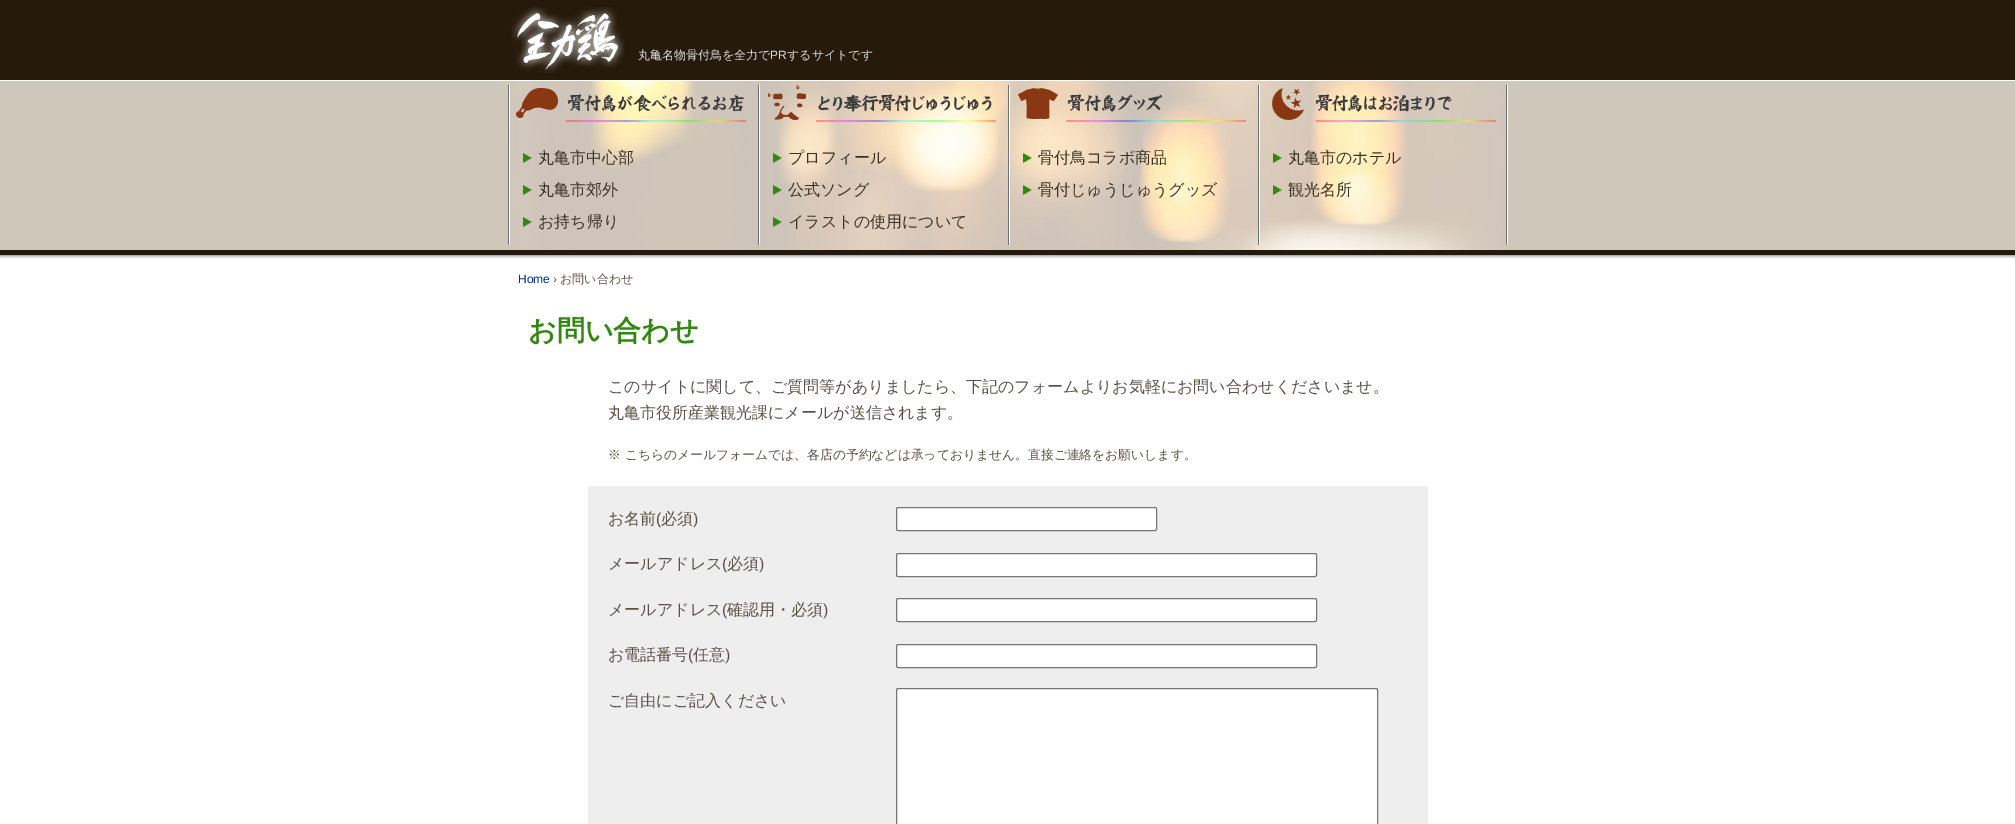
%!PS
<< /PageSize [2015 824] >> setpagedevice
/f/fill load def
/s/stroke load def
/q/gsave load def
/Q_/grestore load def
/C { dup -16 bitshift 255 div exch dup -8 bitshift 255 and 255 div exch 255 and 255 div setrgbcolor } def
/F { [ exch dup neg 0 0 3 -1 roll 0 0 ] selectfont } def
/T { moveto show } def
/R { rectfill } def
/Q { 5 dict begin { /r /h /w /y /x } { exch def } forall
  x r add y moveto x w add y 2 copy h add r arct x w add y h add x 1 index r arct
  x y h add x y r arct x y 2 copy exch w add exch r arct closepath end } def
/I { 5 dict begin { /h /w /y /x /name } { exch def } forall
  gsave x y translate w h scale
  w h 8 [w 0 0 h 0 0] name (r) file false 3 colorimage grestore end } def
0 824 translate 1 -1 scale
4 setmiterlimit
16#FFFFFF C
0 0 2015 824 R
16#261A0C C
0 0 2015 80 R
(1.rgb) 511 7 114 66 I
/WenQuanYiZenHei-Medium 12 F
16#DDDDDD C
(丸亀名物骨付鳥を全力で) 638 59 T
/LiberationSans-Regular 12 F
(PR) 770 59 T
/WenQuanYiZenHei-Medium 12 F
(するサイトです) 787 59 T
(2.rgb) 0 81 2015 178 I
(3.rgb) 508 80 250 173 I
(4.rgb) 516 88 230 34 I
(5.rgb) 523 153 9 10 I
/WenQuanYiZenHei-Medium 16 F
16#3A3124 C
(丸亀市中心部) 538 163 T
(6.rgb) 523 185 9 10 I
(丸亀市郊外) 538 195 T
(7.rgb) 523 217 9 10 I
(お持ち帰り) 538 227 T
(8.rgb) 758 80 250 175 I
(9.rgb) 768 85 228 37 I
(10.rgb) 773 153 9 10 I
(プロフィール) 788 163 T
(11.rgb) 773 185 9 10 I
(公式ソング) 788 195 T
(12.rgb) 773 217 9 10 I
(イラストの使用について) 788 227 T
(13.rgb) 1008 80 250 175 I
(14.rgb) 1018 88 228 34 I
(15.rgb) 1023 153 9 10 I
(骨付鳥コラボ商品) 1038 163 T
(16.rgb) 1023 185 9 10 I
(骨付じゅうじゅうグッズ) 1038 195 T
(17.rgb) 1258 81 250 173 I
(18.rgb) 1272 88 224 34 I
(19.rgb) 1273 153 9 10 I
(丸亀市のホテル) 1288 163 T
(20.rgb) 1273 185 9 10 I
(観光名所) 1288 195 T
/LiberationSans-Regular 12 F
16#003399 C
(Home) 518 283 T
16#5A5144 C
(›) 553 283 T
/WenQuanYiZenHei-Medium 12 F
(お問い合わせ) 560 283 T
/WenQuanYiZenHei-Bold 28 F
16#30880D C
(お問い合わせ) 528 340 T
/WenQuanYiZenHei-Medium 16 F
16#5A5144 C
(このサイトに関して、ご質問等がありましたら、下記のフォームよりお気軽にお問い合わせくださいませ。) 608 392 T
(丸亀市役所産業観光課にメールが送信されます。) 608 418 T
/WenQuanYiZenHei-Medium 12.8 F
(※ こちらのメールフォームでは、各店の予約などは承っておりません。直接ご連絡をお願いします。) 608 459 T
16#EEEEEE C
588 486 840 338 R
/WenQuanYiZenHei-Medium 16 F
16#5A5144 C
(お名前) 608 524 T
/LiberationSans-Regular 16 F
(\() 656 524 T
/WenQuanYiZenHei-Medium 16 F
(必須) 661 524 T
/LiberationSans-Regular 16 F
(\)) 693 524 T
16#FFFFFF C
896.5 507.5 260 23 1.5 Q q f Q_
16#767676 C
s
/WenQuanYiZenHei-Medium 16 F
16#5A5144 C
(メールアドレス) 608 569 T
/LiberationSans-Regular 16 F
(\() 722 569 T
/WenQuanYiZenHei-Medium 16 F
(必須) 727 569 T
/LiberationSans-Regular 16 F
(\)) 759 569 T
16#FFFFFF C
896.5 553.5 420 23 1.5 Q q f Q_
16#767676 C
s
/WenQuanYiZenHei-Medium 16 F
16#5A5144 C
(メールアドレス) 608 615 T
/LiberationSans-Regular 16 F
(\() 722 615 T
/WenQuanYiZenHei-Medium 16 F
(確認用・必須) 727 615 T
/LiberationSans-Regular 16 F
(\)) 823 615 T
16#FFFFFF C
896.5 598.5 420 23 1.5 Q q f Q_
16#767676 C
s
/WenQuanYiZenHei-Medium 16 F
16#5A5144 C
(お電話番号) 608 660 T
/LiberationSans-Regular 16 F
(\() 688 660 T
/WenQuanYiZenHei-Medium 16 F
(任意) 693 660 T
/LiberationSans-Regular 16 F
(\)) 725 660 T
16#FFFFFF C
896.5 644.5 420 23 1.5 Q q f Q_
16#767676 C
s
/WenQuanYiZenHei-Medium 16 F
16#5A5144 C
(ご自由にご記入ください) 608 706 T
16#FFFFFF C
896.5 688.5 481 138 1.5 Q q f Q_
16#767676 C
s
showpage
